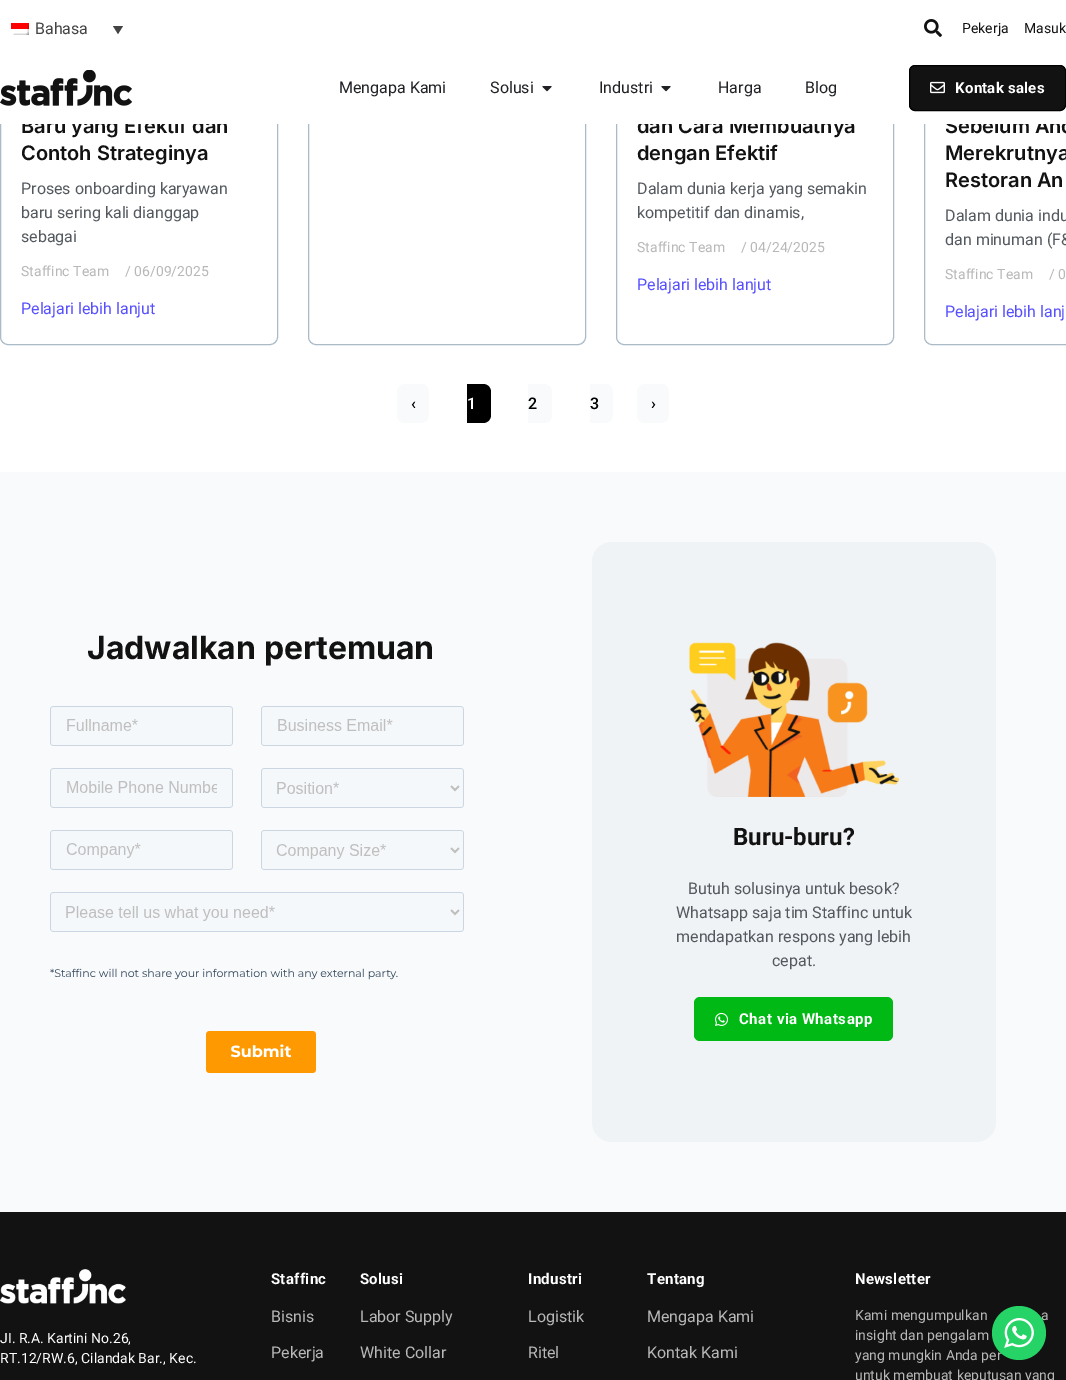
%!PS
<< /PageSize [1066 1380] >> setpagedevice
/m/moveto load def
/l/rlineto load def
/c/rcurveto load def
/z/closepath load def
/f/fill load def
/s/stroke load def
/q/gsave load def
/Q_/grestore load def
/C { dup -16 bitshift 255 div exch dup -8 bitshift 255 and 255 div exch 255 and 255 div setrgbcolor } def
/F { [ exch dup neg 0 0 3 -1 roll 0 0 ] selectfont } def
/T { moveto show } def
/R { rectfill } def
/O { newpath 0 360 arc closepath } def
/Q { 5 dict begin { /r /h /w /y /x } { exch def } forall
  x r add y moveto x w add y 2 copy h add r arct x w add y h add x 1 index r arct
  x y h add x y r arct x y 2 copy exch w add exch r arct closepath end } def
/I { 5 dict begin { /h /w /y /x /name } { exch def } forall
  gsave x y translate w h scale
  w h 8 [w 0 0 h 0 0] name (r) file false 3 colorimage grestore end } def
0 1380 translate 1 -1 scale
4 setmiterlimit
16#FFFFFF C
0 0 1066 1380 R
16#AABBC8 C
.5 -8.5 277 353 7.5 Q s
/Inter-SemiBold 20 F
16#121212 C
(Baru yang Efektif dan) 21 133 T
16#AABBC8 C
308.5 -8.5 277 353 7.5 Q s
616.5 -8.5 277 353 7.5 Q s
16#121212 C
(dan Cara Membuatnya) 637 133 T
16#AABBC8 C
924.5 -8.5 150 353 7.5 Q s
16#121212 C
(Sebelum And) 945 133 T
16#FFFFFF C
0 0 1066 124 R
(1.rgb) 11 23 18 12 I
/Roboto-Regular 16 F
16#444444 C
(Bahasa) 35 34 T
113 26 m 10 0 l -5 8 l z f
(2.rgb) 924 19 18 18 I
/Roboto-Regular 14 F
16#121212 C
(Pekerja) 962 33 T
(Masuk) 1024 33 T
(3.rgb) 0 70 132 36 I
/Roboto-Regular 16 F
16#1F2124 C
(Mengapa Kami) 339 93 T
(Solusi) 490 93 T
(4.rgb) 542 86 10 6 I
(Industri) 599 93 T
(4.rgb) 661 86 10 6 I
(Harga) 718 93 T
(Blog) 805 93 T
16#121212 C
909.5 65.5 156 45 5.5 Q q f Q_
16#000000 C
s
(5.rgb) 930 81 15 13 I
/Roboto-Bold 15 F
16#FFFFFF C
955 93 m .25 0 (Kontak sales) ashow
/Inter-SemiBold 20 F
16#121212 C
(Contoh Strateginya) 21 160 T
/Roboto-Regular 16 F
16#54595F C
(Proses onboarding karyawan) 21 194 T
(baru sering kali dianggap) 21 218 T
(sebagai) 21 242 T
/Roboto-Regular 14 F
16#B8B8B8 C
(Staffinc Team) 21 276 T
(/ 06/09/2025) 125 276 T
/Roboto-Regular 16 F
16#5750FF C
(Pelajari lebih lanjut) 21 314 T
/Inter-SemiBold 20 F
16#121212 C
(dengan Efektif) 637 160 T
/Roboto-Regular 16 F
16#54595F C
(Dalam dunia kerja yang semakin) 637 194 T
(kompetitif dan dinamis,) 637 218 T
/Roboto-Regular 14 F
16#B8B8B8 C
(Staffinc Team) 637 252 T
(/ 04/24/2025) 741 252 T
/Roboto-Regular 16 F
16#5750FF C
(Pelajari lebih lanjut) 637 290 T
/Inter-SemiBold 20 F
16#121212 C
(Merekrutnya) 945 160 T
(Restoran An) 945 187 T
/Roboto-Regular 16 F
16#54595F C
(Dalam dunia indu) 945 221 T
(dan minuman \(F&) 945 245 T
/Roboto-Regular 14 F
16#B8B8B8 C
(Staffinc Team) 945 279 T
(/ 0) 1049 279 T
/Roboto-Regular 16 F
16#5750FF C
(Pelajari lebih lanj) 945 317 T
16#F8FAFB C
397 384 32 39 8 Q f
/Roboto-Medium 16 F
16#000000 C
(‹) 411 409 T
467 384 m 16 0 l 4.5 0 8 3.5 8 8 c 0 23 l 0 4.5 -3.5 8 -8 8 c -16 0 l z f
16#FFFFFF C
(1) 467 409 T
16#F8FAFB C
528 384 m 16 0 l 4.5 0 8 3.5 8 8 c 0 23 l 0 4.5 -3.5 8 -8 8 c -16 0 l z f
16#000000 C
(2) 528 409 T
16#F8FAFB C
590 384 m 15 0 l 4.5 0 8 3.5 8 8 c 0 23 l 0 4.5 -3.5 8 -8 8 c -15 0 l z f
16#000000 C
(3) 590 409 T
16#F8FAFB C
637 384 32 39 8 Q f
16#000000 C
(›) 651 409 T
16#F8FAFB C
0 472 1066 740 R
/Inter-Bold 32 F
16#121212 C
(Jadwalkan pertemuan) 87 659 T
(6.rgb) 50 706 414 367 I
16#F0F3F5 C
592 542 404 600 20 Q f
(7.rgb) 689 642 210 155 I
/Roboto-Bold 24 F
16#121212 C
(Buru-buru?) 733 845 T
/Roboto-Regular 16 F
16#54595F C
(Butuh solusinya untuk besok?) 688 894 T
(Whatsapp saja tim Staffinc untuk) 676 918 T
(mendapatkan respons yang lebih) 676 942 T
(cepat.) 772 966 T
16#00B914 C
694 997 199 44 6 Q f
(8.rgb) 715 1012 14 14 I
/Roboto-Bold 15 F
16#FFFFFF C
739 1024 m .5 0 (Chat via Whatsapp) ashow
16#121212 C
0 1212 1066 168 R
(9.rgb) 0 1269 126 35 I
/Roboto-Regular 14 F
16#FFFFFF C
(JI. R.A. Kartini No.26,) 0 1343 T
(RT.12/RW.6, Cilandak Bar., Kec.) 0 1363 T
/Roboto-Bold 15 F
271 1284 m .25 0 (Staffinc) ashow
/Roboto-Regular 16 F
16#B8B8B8 C
(Bisnis) 271 1322 T
(Pekerja) 271 1358 T
/Roboto-Bold 15 F
16#FFFFFF C
360 1284 m .25 0 (Solusi) ashow
/Roboto-Regular 16 F
16#B8B8B8 C
(Labor Supply) 360 1322 T
(White Collar) 360 1358 T
/Roboto-Bold 15 F
16#FFFFFF C
528 1284 m .25 0 (Industri) ashow
/Roboto-Regular 16 F
16#B8B8B8 C
(Logistik) 528 1322 T
(Ritel) 528 1358 T
/Roboto-Bold 15 F
16#FFFFFF C
647 1284 m .25 0 (Tentang) ashow
/Roboto-Regular 16 F
16#B8B8B8 C
(Mengapa Kami) 647 1322 T
(Kontak Kami) 647 1358 T
/Roboto-Bold 15 F
16#FFFFFF C
855 1284 m .25 0 (Newsletter) ashow
/Roboto-Regular 14 F
16#B8B8B8 C
(Kami mengumpulkan) 855 1320 T
(a) 1041 1320 T
(insight dan pengalam) 855 1340 T
(yang mungkin Anda per) 855 1360 T
(untuk membuat keputusan yang) 855 1380 T
16#25D366 C
1019 1333 27 O f
(10.rgb) 1004 1318 30 30 I
showpage
